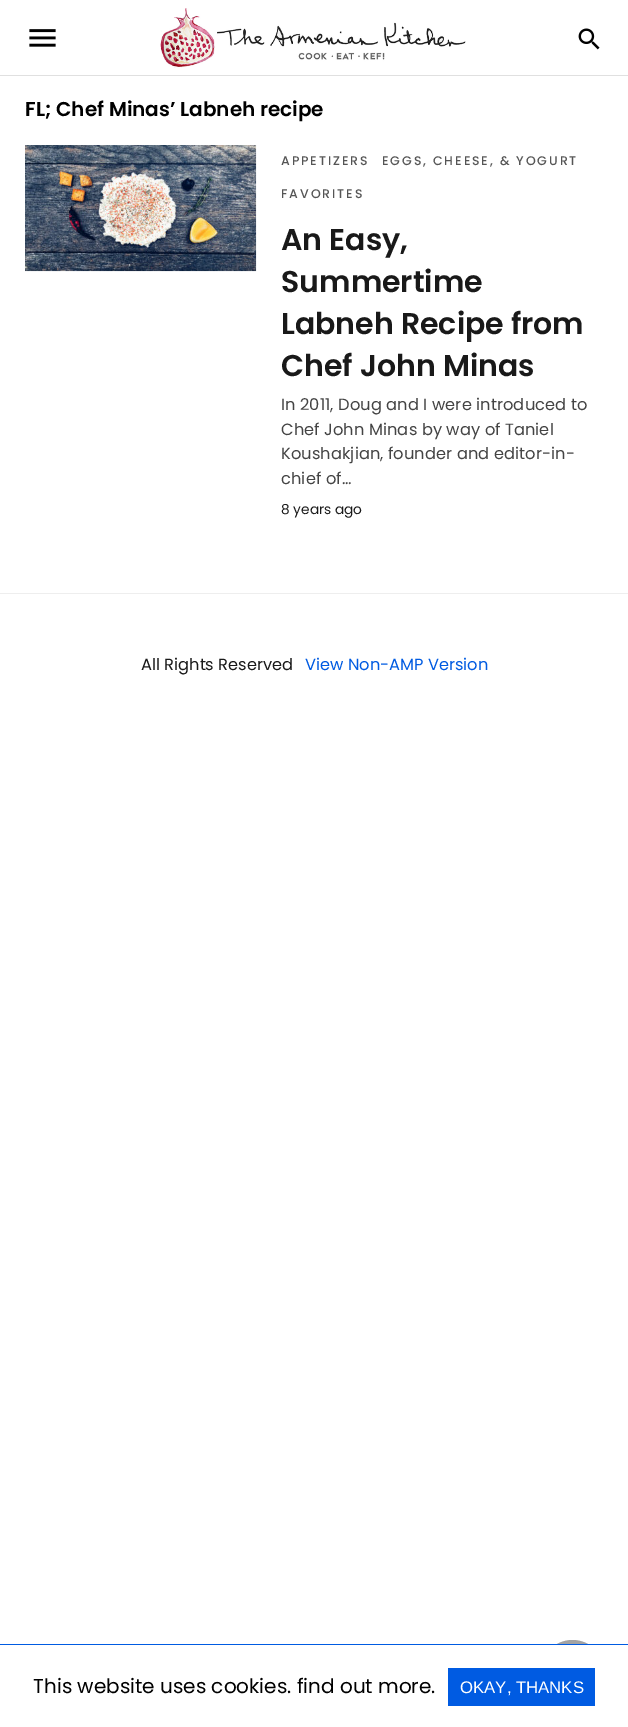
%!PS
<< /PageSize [628 1727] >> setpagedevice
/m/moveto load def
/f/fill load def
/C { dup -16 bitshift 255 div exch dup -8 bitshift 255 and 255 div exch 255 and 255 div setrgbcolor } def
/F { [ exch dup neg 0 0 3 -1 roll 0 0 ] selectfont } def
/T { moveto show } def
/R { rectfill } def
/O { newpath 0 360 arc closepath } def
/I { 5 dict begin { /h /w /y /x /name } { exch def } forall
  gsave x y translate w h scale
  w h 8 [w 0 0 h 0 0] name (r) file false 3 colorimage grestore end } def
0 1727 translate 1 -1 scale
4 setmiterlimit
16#FFFFFF C
0 0 628 1727 R
16#E0E0E0 C
0 75 628 1 R
(1.rgb) 29 29 27 18 I
(2.rgb) 160 8 306 60 I
(3.rgb) 578 28 22 22 I
/Poppins-SemiBold 20 F
16#000000 C
(FL; Chef Minas’ Labneh recipe) 25 116 T
(4.rgb) 25 145 232 127 I
/Poppins-Medium 12.5 F
16#555555 C
281 165 m 1.9 0 (APPETIZERS) ashow
382 165 m 1.9 0 (EGGS, CHEESE, & YOGURT) ashow
281 198 m 1.9 0 (FAVORITES) ashow
/Poppins-SemiBold 30 F
16#191919 C
(An Easy,) 281 250 T
(Summertime) 281 292 T
(Labneh Recipe from) 281 334 T
(Chef John Minas) 281 376 T
/Poppins-Regular 16.25 F
16#444444 C
281 410 m .1 0 (In 2011, Doug and I were introduced to) ashow
281 435 m .1 0 (Chef John Minas by way of Taniel) ashow
281 459 m .1 0 (Koushakjian, founder and editor-in-) ashow
281 484 m .1 0 (chief of…) ashow
/Poppins-Regular 13.75 F
16#191919 C
(8 years ago) 281 514 T
16#EEEEEE C
0 593 628 1 R
/Poppins-Regular 16.25 F
16#191919 C
(All Rights Reserved) 141 670 T
16#005BE2 C
(View Non-AMP Version) 305 670 T
16#A3A3A3 C
572.5 1671.5 31.5 O f
16#FFFFFF C
541 1645 63 58 R
16#005BE2 C
0 1644 628 1 R
/Poppins-Regular 20 F
16#000000 C
(This website uses cookies. find out more.) 33 1693 T
16#005BE2 C
448 1668 147 38 R
/LiberationSans-Regular 16.75 F
16#FFFFFF C
(OKAY, THANKS) 460 1693 T
showpage
